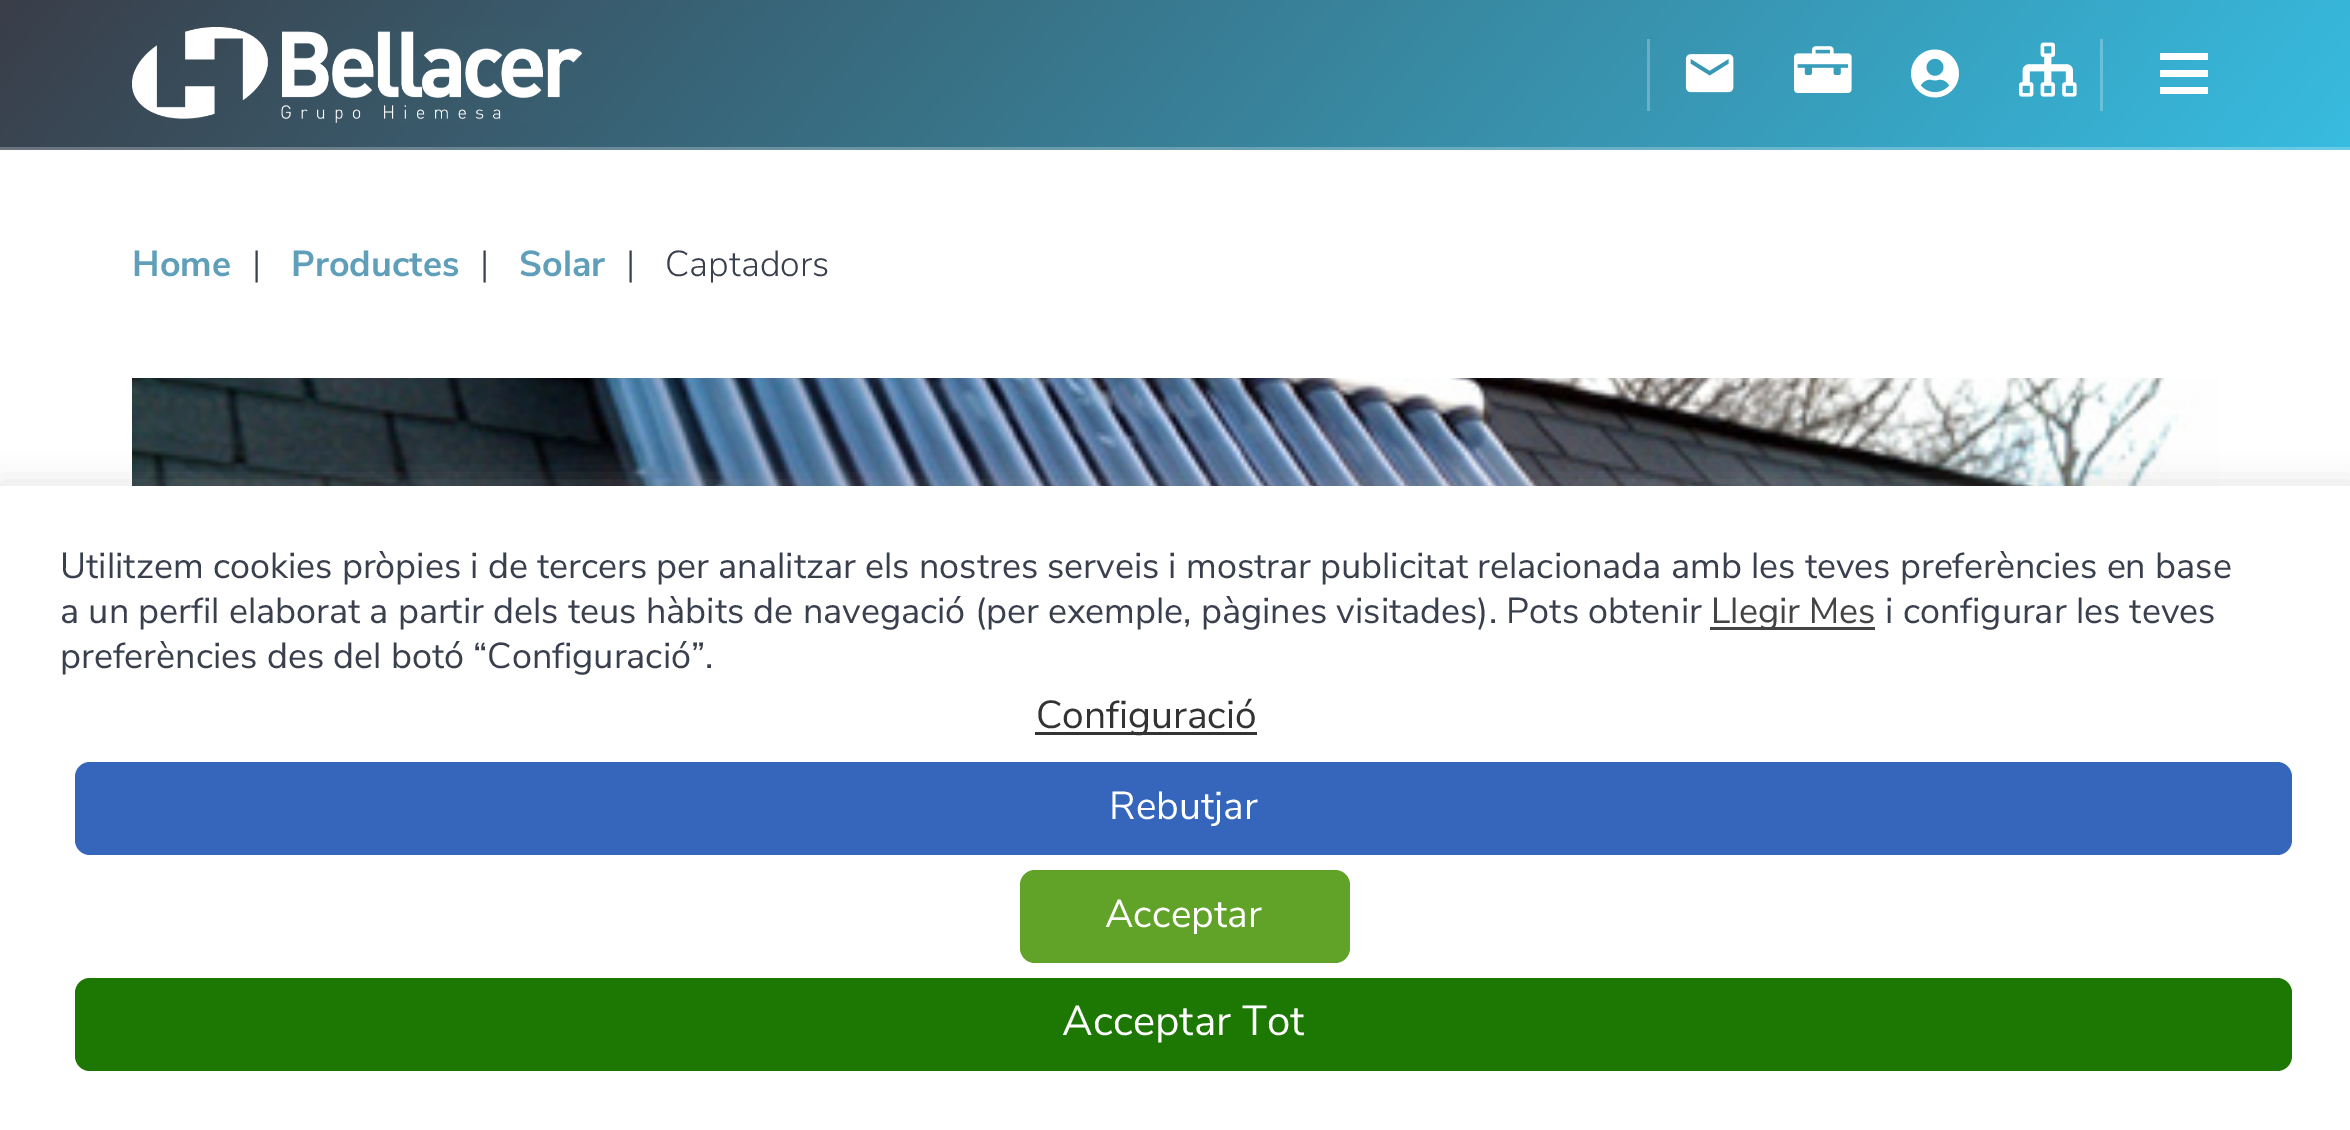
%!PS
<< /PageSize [2350 1130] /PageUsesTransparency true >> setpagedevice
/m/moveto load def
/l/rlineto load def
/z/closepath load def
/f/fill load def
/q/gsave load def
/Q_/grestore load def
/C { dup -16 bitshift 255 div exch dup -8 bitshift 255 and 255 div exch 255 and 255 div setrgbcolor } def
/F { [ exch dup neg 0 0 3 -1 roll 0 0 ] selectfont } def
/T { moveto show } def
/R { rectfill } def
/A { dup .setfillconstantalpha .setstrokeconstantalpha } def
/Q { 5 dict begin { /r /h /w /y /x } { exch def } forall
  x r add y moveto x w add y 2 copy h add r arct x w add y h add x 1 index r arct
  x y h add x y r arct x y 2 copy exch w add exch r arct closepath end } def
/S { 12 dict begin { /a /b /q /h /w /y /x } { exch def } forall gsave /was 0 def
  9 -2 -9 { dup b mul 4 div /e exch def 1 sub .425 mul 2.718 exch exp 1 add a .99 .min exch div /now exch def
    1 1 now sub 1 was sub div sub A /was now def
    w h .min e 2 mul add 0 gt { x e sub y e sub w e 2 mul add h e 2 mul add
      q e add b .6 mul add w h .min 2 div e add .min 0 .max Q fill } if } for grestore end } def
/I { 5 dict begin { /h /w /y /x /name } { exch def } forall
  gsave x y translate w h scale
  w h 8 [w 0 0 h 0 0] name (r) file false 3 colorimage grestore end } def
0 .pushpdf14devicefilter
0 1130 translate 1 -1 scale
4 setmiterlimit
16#FFFFFF C
0 0 2350 1130 R
q 0 0 m 2350 0 l 0 147 l -2350 0 l z clip newpath
<< /ShadingType 2 /ColorSpace /DeviceRGB /Coords [1895 687 457 -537] /Extend [true true] /Function << /FunctionType 2 /Domain [0 1] /C0 [.216 .737 .878] /C1 [.224 .243 .286] /N 1 >> >> shfill Q_
q 1647 39 m 3 0 l 0 72 l -3 0 l z clip newpath
<< /ShadingType 2 /ColorSpace /DeviceRGB /Coords [1895 687 457 -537] /Extend [true true] /Function << /FunctionType 2 /Domain [0 1] /C0 [.412 .804 .91] /C1 [.42 .431 .467] /N 1 >> >> shfill Q_
q 2100 39 m 3 0 l 0 72 l -3 0 l z clip newpath
<< /ShadingType 2 /ColorSpace /DeviceRGB /Coords [1895 687 457 -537] /Extend [true true] /Function << /FunctionType 2 /Domain [0 1] /C0 [.412 .804 .91] /C1 [.42 .431 .467] /N 1 >> >> shfill Q_
q 0 147 m 2350 0 l 0 3 l -2350 0 l z clip newpath
<< /ShadingType 2 /ColorSpace /DeviceRGB /Coords [1895 687 457 -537] /Extend [true true] /Function << /FunctionType 2 /Domain [0 1] /C0 [.412 .804 .91] /C1 [.42 .431 .467] /N 1 >> >> shfill Q_
(1.rgb) 132 27 450 96 I
(2.rgb) 1685 54 49 39 I
(3.rgb) 1794 46 58 47 I
(4.rgb) 1911 49 48 49 I
(5.rgb) 2019 42 58 55 I
2208 87 m 0 7 l -48 0 l 0 -7 l z 2208 70 m 0 7 l -48 0 l 0 -7 l z 2208 53 m 0 7 l -48 0 l 0 -7 l z f
/NunitoSans-Bold 36 F
16#5F9FBA C
(Home) 132 276 T
/NunitoSans-Light 36 F
16#393F4C C
(|) 252 276 T
/NunitoSans-Bold 36 F
16#5F9FBA C
(Productes) 291 276 T
/NunitoSans-Light 36 F
16#393F4C C
(|) 480 276 T
/NunitoSans-Bold 36 F
16#5F9FBA C
(Solar) 519 276 T
/NunitoSans-Light 36 F
16#393F4C C
(|) 626 276 T
(Captadors) 665 276 T
(6.rgb) 132 378 2088 108 I
16#ACABAB C
0 483 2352 645 0 15 .3 S
16#FFFFFF C
0 486 2350 644 R
/NunitoSans-Regular 36 F
16#393F4C C
(Utilitzem cookies pròpies i de tercers per analitzar els nostres serveis i mostrar publicitat relacionada amb les teves preferències en base) 60 578 T
(a un perfil elaborat a partir dels teus hàbits de navegació \(per exemple, pàgines visitades\). Pots obtenir) 60 623 T
16#444444 C
1710 627 165 3 R
(Llegir Mes) 1711 623 T
16#393F4C C
(i configurar les teves) 1885 623 T
(preferències des del botó “Configuració”.) 60 668 T
16#333333 C
1035 732 222 3 R
/NunitoSans-Regular 39 F
(Configuració) 1036 728 T
16#3566BB C
75 762 2217 93 15 Q f
16#FFFFFF C
(Rebutjar) 1109 819 T
16#61A229 C
1020 870 330 93 15 Q f
16#FFFFFF C
(Acceptar) 1105 927 T
16#1C7703 C
75 978 2217 93 15 Q f
/NunitoSans-Regular 42 F
16#FFFFFF C
(Acceptar Tot) 1062 1035 T
.poppdf14devicefilter showpage
